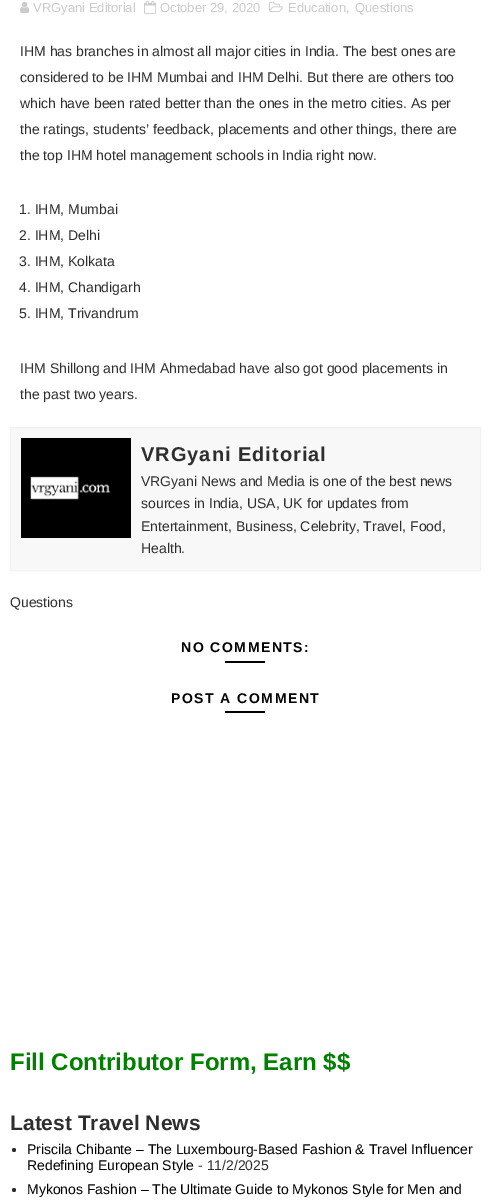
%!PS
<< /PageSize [491 1204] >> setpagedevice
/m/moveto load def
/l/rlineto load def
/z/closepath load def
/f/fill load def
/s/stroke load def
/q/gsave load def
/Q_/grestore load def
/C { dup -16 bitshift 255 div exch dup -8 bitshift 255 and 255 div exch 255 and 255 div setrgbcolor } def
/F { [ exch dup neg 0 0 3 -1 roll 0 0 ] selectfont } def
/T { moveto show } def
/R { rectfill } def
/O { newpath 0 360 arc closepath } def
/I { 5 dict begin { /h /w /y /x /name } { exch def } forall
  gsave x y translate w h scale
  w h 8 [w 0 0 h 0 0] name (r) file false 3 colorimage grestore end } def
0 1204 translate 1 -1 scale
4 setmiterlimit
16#FFFFFF C
0 0 491 1204 R
(1.rgb) 20 1 10 12 I
/LiberationSans-Regular 13 F
16#CBCBCB C
(VRGyani Editorial) 33 12 T
(2.rgb) 144 0 12 14 I
(October 29, 2020) 160 12 T
(3.rgb) 269 1 14 11 I
(Education) 288 12 T
16#BDBDBD C
(,) 346 12 T
16#CBCBCB C
(Questions) 355 12 T
/LiberationSans-Regular 14 F
16#2E2E2E C
(IHM has branches in almost all major cities in India. The best ones are) 20 56 T
(considered to be IHM Mumbai and IHM Delhi. But there are others too) 20 82 T
(which have been rated better than the ones in the metro cities. As per) 20 108 T
(the ratings, students’ feedback, placements and other things, there are) 20 134 T
(the top IHM hotel management schools in India right now.) 20 160 T
(1. IHM, Mumbai) 19 214 T
(2. IHM, Delhi) 19 240 T
(3. IHM, Kolkata) 19 266 T
(4. IHM, Chandigarh) 19 292 T
(5. IHM, Trivandrum) 19 318 T
(IHM Shillong and IHM Ahmedabad have also got good placements in) 20 373 T
(the past two years.) 20 399 T
16#F8F8F8 C
10.5 427.5 m 470 0 l 0 143 l -470 0 l z q f Q_
16#F2F2F2 C
s
(4.rgb) 21 438 110 100 I
/LiberationSans-Bold 20 F
16#2E2E2E C
141 461 m 1 0 (VRGyani Editorial) ashow
/LiberationSans-Regular 14 F
(VRGyani News and Media is one of the best news) 141 486 T
(sources in India, USA, UK for updates from) 141 508 T
(Entertainment, Business, Celebrity, Travel, Food,) 141 531 T
(Health.) 141 553 T
(Questions) 10 607 T
/LiberationSans-Bold 14 F
16#000000 C
181 652 m 1.5 0 (NO COMMENTS:) ashow
225 661 40 2 R
171 703 m 1.5 0 (POST A COMMENT) ashow
225 711 40 2 R
/LiberationSans-Bold 24 F
16#008000 C
(Fill Contributor Form, Earn $$) 10 1070 T
/LiberationSans-Bold 21 F
16#2E2E2E C
(Latest Travel News) 10 1130 T
14 1150 2 O f
/LiberationSans-Regular 14 F
16#000000 C
(Priscila Chibante – The Luxembourg-Based Fashion & Travel Influencer) 27 1154 T
(Redefining European Style) 27 1170 T
16#2E2E2E C
(- 11/2/2025) 198 1170 T
14 1190 2 O f
16#000000 C
(Mykonos Fashion – The Ultimate Guide to Mykonos Style for Men and) 27 1194 T
showpage
